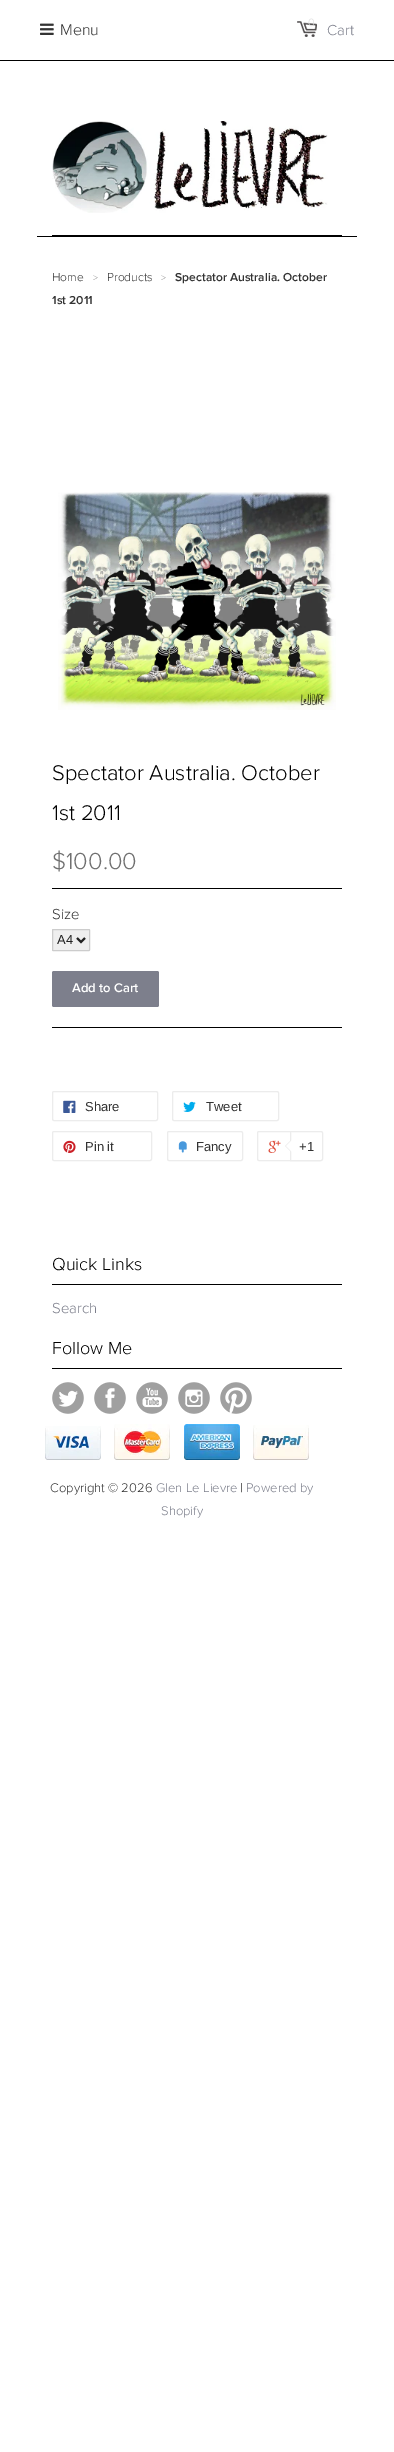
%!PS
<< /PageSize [394 2452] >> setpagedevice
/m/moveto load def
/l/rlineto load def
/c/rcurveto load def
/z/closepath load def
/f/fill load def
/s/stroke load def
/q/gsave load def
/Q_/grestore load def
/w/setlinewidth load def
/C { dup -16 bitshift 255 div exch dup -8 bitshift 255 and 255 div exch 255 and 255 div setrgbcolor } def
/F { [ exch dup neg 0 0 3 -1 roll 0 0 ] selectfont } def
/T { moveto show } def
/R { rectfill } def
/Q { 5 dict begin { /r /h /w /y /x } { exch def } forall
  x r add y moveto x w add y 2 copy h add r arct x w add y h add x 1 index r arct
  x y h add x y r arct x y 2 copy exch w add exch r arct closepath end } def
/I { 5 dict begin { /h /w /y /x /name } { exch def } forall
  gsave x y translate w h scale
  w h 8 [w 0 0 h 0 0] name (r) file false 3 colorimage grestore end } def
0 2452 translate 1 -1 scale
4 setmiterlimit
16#FFFFFF C
0 0 394 2452 R
16#000000 C
0 60 394 1 R
(1.rgb) 40 23 14 12 I
/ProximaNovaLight-Light 16 F
16#333333 C
(Menu) 60 35 T
(2.rgb) 297 21 20 16 I
/ProximaNovaLight-Light 11 F
16#DEDEDE C
(0) 308 26 T
/ProximaNovaLight-Light 15 F
16#7D7F8C C
(Cart) 327 35 T
16#000000 C
37 236 320 1 R
52 235 290 1 R
(3.rgb) 52 121 276 92 I
/ProximaNovaLight-Light 12 F
16#333333 C
(Home) 52 281 T
/ProximaNovaLight-Light 10 F
16#999999 C
(>) 93 281 T
/ProximaNovaLight-Light 12 F
16#333333 C
(Products) 107 281 T
/ProximaNovaLight-Light 10 F
16#999999 C
(>) 161 281 T
/ProximaNovaLight-SemiBold 12 F
16#333333 C
(Spectator Australia. October) 175 281 T
(1st 2011) 52 304 T
(4.rgb) 58 492 278 218 I
/ProximaNovaLight-Light 22 F
16#000000 C
(Spectator Australia. October) 52 780 T
(1st 2011) 52 820 T
/ProximaNovaLight-Light 24 F
16#707070 C
($100.00) 52 869 T
16#000000 C
52 888 290 1 R
52 1027 290 1 R
/ProximaNovaLight-Light 15 F
16#333333 C
(Size) 52 919 T
16#EFEFEF C
52.5 929.5 37 21 .5 Q q f Q_
16#CCCCCC C
s
16#222222 C
2 w
77 938 m 4 4 l 4 -4 l s
/LiberationSans-Regular 13 F
(A4) 57 944 T
16#7D7F8C C
52 971 107 36 2 Q f
/ProximaNovaLight-SemiBold 13 F
16#FFFFFF C
(Add to Cart) 72 992 T
16#ECECEC C
1 w
52.5 1091.5 105 29 1.5 Q s
(5.rgb) 63 1100 13 13 I
/LiberationSans-Regular 13 F
16#333333 C
(Share) 85 1111 T
16#ECECEC C
172.5 1091.5 106 29 1.5 Q s
(6.rgb) 183 1101 13 11 I
16#333333 C
(Tweet) 206 1111 T
16#ECECEC C
52.5 1131.5 99 29 1.5 Q s
(7.rgb) 63 1140 13 13 I
16#333333 C
(Pin it) 85 1151 T
16#ECECEC C
167.5 1131.5 75 29 1.5 Q s
(8.rgb) 178 1141 9 12 I
16#333333 C
(Fancy) 196 1151 T
16#ECECEC C
257.5 1131.5 64 29 1.5 Q s
(9.rgb) 268 1140 13 13 I
16#FFFFFF C
290.5 1131.5 m 30.5 0 l 1 0 1.5 .5 1.5 1.5 c 0 26 l 0 1 -.5 1.5 -1.5 1.5 c -30.5 0 l z q f Q_
16#ECECEC C
s
291 1140 m 0 12 l -6 -6 l z f
16#FFFFFF C
292 1140 m 0 12 l -6 -6 l z f
16#333333 C
(+1) 299 1151 T
16#000000 C
52 1284 290 1 R
/ProximaNovaLight-Light 18 F
(Quick Links) 52 1270 T
/ProximaNovaLight-Light 15 F
16#7D7F8C C
(Search) 52 1313 T
16#000000 C
52 1368 290 1 R
/ProximaNovaLight-Light 18 F
(Follow Me) 52 1354 T
(10.rgb) 52 1382 32 32 I
(11.rgb) 94 1382 32 32 I
(12.rgb) 136 1382 32 32 I
(13.rgb) 178 1382 32 32 I
(14.rgb) 220 1382 32 32 I
(15.rgb) 45 1426 56 34 I
(16.rgb) 114 1424 56 36 I
(17.rgb) 184 1424 56 36 I
(18.rgb) 253 1425 56 35 I
/ProximaNovaLight-Light 13 F
16#333333 C
(Copyright © 2026) 50 1492 T
16#7D7F8C C
(Glen Le Lievre) 156 1492 T
16#333333 C
(|) 240 1492 T
16#7D7F8C C
(Powered by) 246 1492 T
(Shopify) 161 1515 T
showpage
